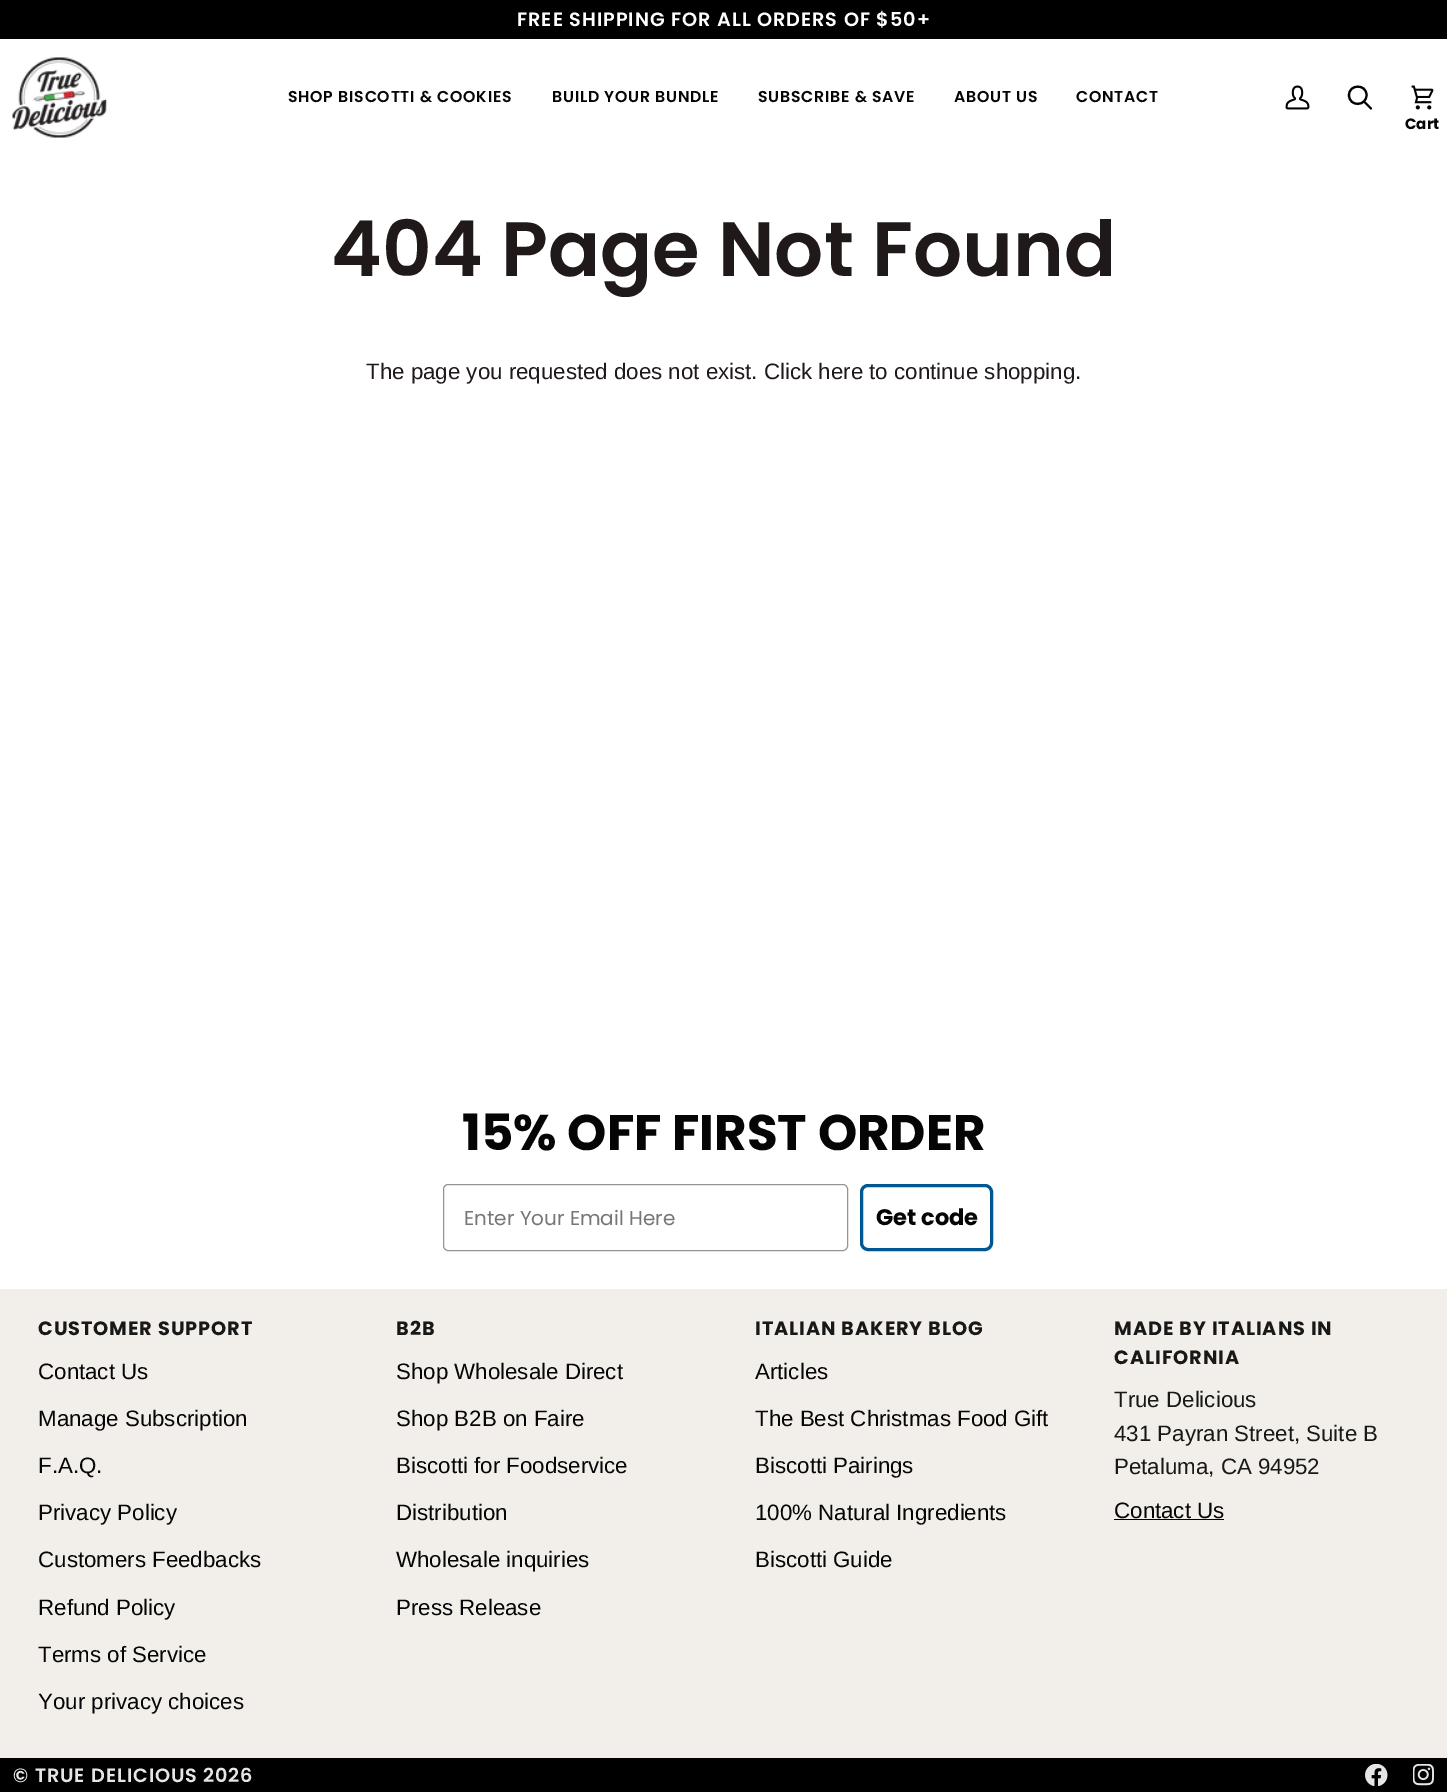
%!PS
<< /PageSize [1447 1792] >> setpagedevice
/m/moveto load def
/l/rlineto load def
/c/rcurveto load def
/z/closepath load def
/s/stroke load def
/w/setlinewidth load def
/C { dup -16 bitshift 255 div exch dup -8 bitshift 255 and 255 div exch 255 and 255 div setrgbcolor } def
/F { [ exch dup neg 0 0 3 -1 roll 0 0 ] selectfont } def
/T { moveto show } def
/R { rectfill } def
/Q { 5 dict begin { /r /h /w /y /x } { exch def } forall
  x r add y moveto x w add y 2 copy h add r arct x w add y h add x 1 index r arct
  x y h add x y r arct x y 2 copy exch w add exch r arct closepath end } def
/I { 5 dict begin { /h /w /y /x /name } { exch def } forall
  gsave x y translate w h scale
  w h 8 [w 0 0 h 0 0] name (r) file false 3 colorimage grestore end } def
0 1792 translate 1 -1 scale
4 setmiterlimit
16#FFFFFF C
0 0 1447 1792 R
16#000000 C
0 0 1447 39 R
/Poppins-SemiBold 19.25 F
16#FFFFFF C
517 26 m .95 0 (FREE SHIPPING FOR ALL ORDERS OF $50+) ashow
(1.rgb) 12 57 95 81 I
/Poppins-SemiBold 15.75 F
16#050505 C
288 102 m .75 0 (SHOP BISCOTTI & COOKIES) ashow
552 102 m .75 0 (BUILD YOUR BUNDLE) ashow
758 102 m .75 0 (SUBSCRIBE & SAVE) ashow
954 102 m .75 0 (ABOUT US) ashow
1076 102 m .75 0 (CONTACT) ashow
(2.rgb) 1285 85 25 25 I
16#000000 C
2.1 w
1 setlinecap
1 setlinejoin
1366.5 95 m 0 11.5 -17 12 -17.5 .5 c -.5 -11.5 17.5 -12 17.5 -.5 c z 1371 108.5 m -7 -7 l z s
(3.rgb) 1411 85 23 25 I
/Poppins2-Bold 15 F
16#050505 C
(Cart) 1405 129 T
/Poppins-SemiBold 77 F
16#1F1919 C
(404 Page Not Found) 331 276 T
/LiberationSans-Regular 22.3 F
(The page you requested does not exist. Click here to continue shopping.) 366 379 T
/Poppins-Bold 50 F
16#050505 C
(15% OFF FIRST ORDER) 462 1150 T
16#949596 C
1 w
0 setlinecap
0 setlinejoin
443.5 1184.5 404 66 4.5 Q s
/Poppins-Regular 20 F
16#767676 C
(Enter Your Email Here) 464 1225 T
16#005792 C
3 w
861.5 1185.5 130 64 6.5 Q s
/Poppins-Bold 22.5 F
16#050505 C
(Get code) 876 1225 T
16#F2EFEA C
0 1289 1447 469 R
/Poppins2-Bold 19.25 F
16#181817 C
38 1335 m .95 0 (CUSTOMER SUPPORT) ashow
/LiberationSans-Regular 22.3 F
16#050505 C
(Contact Us) 38 1379 T
(Manage Subscription) 38 1426 T
(F.A.Q.) 38 1473 T
(Privacy Policy) 38 1520 T
(Customers Feedbacks) 38 1567 T
(Refund Policy) 38 1615 T
(Terms of Service) 38 1662 T
(Your privacy choices) 38 1709 T
/Poppins2-Bold 19.25 F
16#181817 C
396 1335 m .95 0 (B2B) ashow
/LiberationSans-Regular 22.3 F
16#050505 C
(Shop Wholesale Direct) 396 1379 T
(Shop B2B on Faire) 396 1426 T
(Biscotti for Foodservice) 396 1473 T
(Distribution) 396 1520 T
(Wholesale inquiries) 396 1567 T
(Press Release) 396 1615 T
/Poppins2-Bold 19.25 F
16#181817 C
755 1335 m .95 0 (ITALIAN BAKERY BLOG) ashow
/LiberationSans-Regular 22.3 F
16#050505 C
(Articles) 755 1379 T
(The Best Christmas Food Gift) 755 1426 T
(Biscotti Pairings) 755 1473 T
(100% Natural Ingredients) 755 1520 T
(Biscotti Guide) 755 1567 T
/Poppins2-Bold 19.25 F
16#181817 C
1114 1335 m .95 0 (MADE BY ITALIANS IN) ashow
1114 1364 m .95 0 (CALIFORNIA) ashow
/LiberationSans-Regular 22.3 F
(True Delicious) 1114 1407 T
(431 Payran Street, Suite B) 1114 1441 T
(Petaluma, CA 94952) 1114 1474 T
16#050505 C
(Contact Us) 1114 1518 T
16#000000 C
1114 1519 110 1 R
0 1758 1447 34 R
/Poppins-SemiBold 19.25 F
16#E6E6E6 C
13 1782 m .95 0 (© TRUE DELICIOUS) ashow
203 1782 m .95 0 (2026) ashow
(4.rgb) 1365 1764 23 22 I
(5.rgb) 1413 1764 21 22 I
showpage
